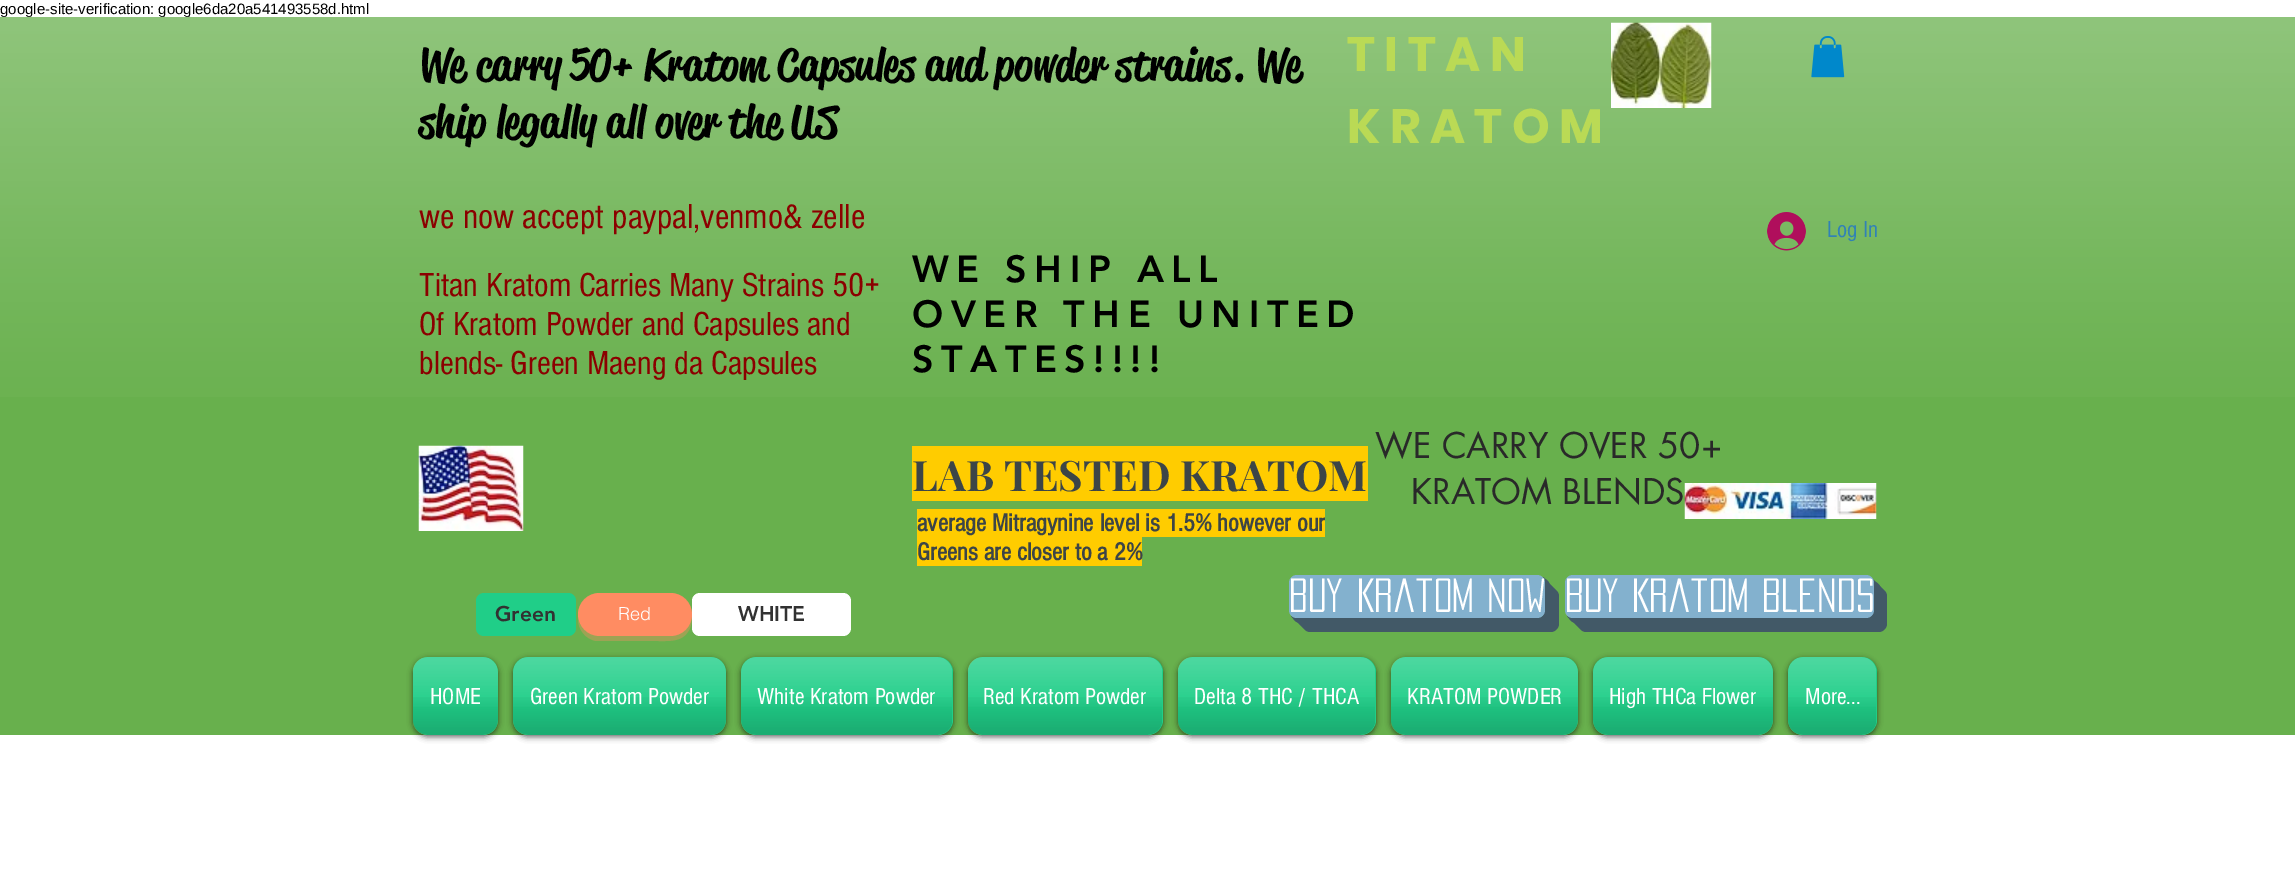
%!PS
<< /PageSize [2295 885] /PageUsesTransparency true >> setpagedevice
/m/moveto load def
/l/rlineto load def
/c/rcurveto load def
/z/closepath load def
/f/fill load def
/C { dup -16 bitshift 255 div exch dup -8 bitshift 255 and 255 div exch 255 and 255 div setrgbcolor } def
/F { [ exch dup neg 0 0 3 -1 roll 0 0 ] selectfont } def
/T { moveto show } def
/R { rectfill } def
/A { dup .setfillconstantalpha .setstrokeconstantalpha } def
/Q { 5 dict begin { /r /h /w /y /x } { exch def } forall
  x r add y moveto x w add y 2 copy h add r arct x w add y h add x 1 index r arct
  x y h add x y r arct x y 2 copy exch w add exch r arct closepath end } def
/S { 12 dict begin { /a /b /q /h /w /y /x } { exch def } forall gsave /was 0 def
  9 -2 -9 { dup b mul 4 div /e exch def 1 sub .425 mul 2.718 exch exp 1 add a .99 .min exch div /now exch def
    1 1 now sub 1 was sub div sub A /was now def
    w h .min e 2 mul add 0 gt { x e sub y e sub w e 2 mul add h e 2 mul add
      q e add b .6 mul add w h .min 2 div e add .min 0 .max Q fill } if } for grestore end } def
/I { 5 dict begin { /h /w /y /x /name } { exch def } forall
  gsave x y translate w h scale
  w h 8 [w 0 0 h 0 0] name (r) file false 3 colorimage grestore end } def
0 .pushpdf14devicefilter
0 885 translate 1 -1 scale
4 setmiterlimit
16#FFFFFF C
0 0 2295 885 R
/LiberationSans-Regular 15 F
16#000000 C
(google-site-verification: google6da20a541493558d.html) 0 14 T
16#68B04D C
0 17 2295 718 R
(1.rgb) 0 16 2295 381 I
/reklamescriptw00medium-Medium 45 F
16#000000 C
(We carry 50+ Kratom Capsules and powder strains. We) 419 80 T
(ship legally all over the US) 419 137 T
/Poppins-Bold 48 F
16#BADA55 C
1347 71 m 9.5 0 (TITAN) ashow
1347 143 m 9.5 0 (KRATOM) ashow
(2.rgb) 1611 22 101 86 I
(3.rgb) 1811 36 34 42 I
/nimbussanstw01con-Regular 36 F
16#8B0000 C
(we now accept paypal,venmo& zelle) 419 228 T
(4.rgb) 1767 212 39 39 I
/nimbussanstw01con-Regular 24 F
16#3182B5 C
(Log In) 1827 237 T
/nimbussanstw01con-Regular 34.5 F
16#8B0000 C
(Titan Kratom Carries Many Strains 50+) 419 296 T
(Of Kratom Powder and Capsules and) 419 335 T
(blends- Green Maeng da Capsules) 419 374 T
/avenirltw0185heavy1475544-Black 37.5 F
16#000000 C
912 282 m 7.5 0 (WE SHIP ALL) ashow
912 327 m 7.5 0 (OVER THE UNITED) ashow
912 372 m 7.5 0 (STATES!!!!) ashow
(5.rgb) 418 445 106 86 I
16#FFCC00 C
912 446 456 55 R
/PlayfairDisplay-Bold 42 F
16#3C4547 C
(LAB TESTED KRATOM) 912 491 T
/futura-Regular 34.5 F
16#292929 C
(WE CARRY OVER 50+) 1375 458 T
(KRATOM BLENDS) 1411 504 T
(6.rgb) 1684 483 193 36 I
16#FFCC00 C
917 509 408 28 R
/nimbussanstw01con-Bold 25.5 F
16#3C4547 C
(average Mitragynine level is 1.5% however our) 917 531 T
16#FFCC00 C
917 537 225 29 R
16#3C4547 C
(Greens are closer to a 2%) 917 560 T
16#20CE88 C
476 593 100 43 8 Q f
/avenirltw0185heavy1475544-Black 21 F
16#323232 C
(Green) 495 621 T
16#9DA354 C
578 619 m 0 10 7 20 18 22 c 62 0 l 13 0 26 1 32 -13 c 2 -5 2 -9 1 -14 c 0 12 -9 22 -21 22 c -71 0 l -10 0 -19 -7 -21 -17 c z f
16#FF8C62 C
578 593 114 43 21.5 Q f
/helvetica-Light 18 F
16#FFFFFF C
(Red) 618 620 T
692 593 159 43 8 Q f
/avenirltw0185heavy1475544-Black 21 F
16#323232 C
(WHITE) 738 621 T
16#425967 C
1302 618 m 0 6 l 0 4 4 8 8 8 c 241 0 l 4 0 8 -4 8 -8 c 0 -28 l 0 -4 -4 -8 -8 -8 c -6 0 l 0 22 l 0 5 -3 8 -7 8 c z f
1299 618 m 0 3 l 0 4 4 8 8 8 c 241 0 l 4 0 8 -4 8 -8 c 0 -28 l 0 -4 -4 -8 -8 -8 c -3 0 l 0 25 l 0 5 -3 8 -7 8 c z f
1296 618 m 0 4 4 8 8 8 c 241 0 l 4 0 8 -4 8 -8 c 0 -28 l 0 -4 -4 -8 -8 -8 c 0 28 l 0 5 -3 8 -7 8 c z f
1293 618 m 1 3 4 5 8 5 c 241 0 l 4 0 8 -4 8 -8 c 0 -28 l 0 -4 -2 -7 -5 -8 c 0 3 l 0 28 l 0 5 -3 8 -7 8 c -242 0 l z f
1291 616 m 2 3 4 4 7 4 c 241 0 l 4 0 8 -4 8 -8 c 0 -28 l 0 -3 -1 -5 -4 -7 c 1 2 2 3 2 5 c 0 28 l 0 5 -3 8 -7 8 c -242 0 l -2 0 -3 -1 -5 -2 c z f
16#83B1CE C
1289 575 256 43 8 Q f
/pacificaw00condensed-Regular 42 F
16#FFFFFF C
(Buy Kratom Now) 1289 612 T
16#425967 C
1578 618 m 0 6 l 0 4 4 8 8 8 c 293 0 l 4 0 8 -4 8 -8 c 0 -28 l 0 -4 -4 -8 -8 -8 c -5 0 l 0 22 l 0 5 -4 8 -8 8 c z f
1575 618 m 0 3 l 0 4 4 8 8 8 c 293 0 l 4 0 8 -4 8 -8 c 0 -28 l 0 -4 -4 -8 -8 -8 c -2 0 l 0 25 l 0 5 -4 8 -8 8 c z f
1572 618 m 0 4 4 8 8 8 c 293 0 l 4 0 8 -4 8 -8 c 0 -28 l 0 -4 -3 -8 -7 -8 c 0 28 l 0 5 -4 8 -8 8 c z f
1569 618 m 1 3 4 5 8 5 c 293 0 l 4 0 8 -4 8 -8 c 0 -28 l 0 -3 -2 -6 -5 -7 c 1 21 l 0 6 1 17 -8 17 c -294 0 l z f
1567 616 m 2 3 4 4 7 4 c 293 0 l 4 0 8 -4 8 -8 c 0 -28 l 0 -2 -1 -4 -3 -6 c 1 1 2 3 2 4 c 0 28 l 0 5 -4 8 -8 8 c -294 0 l -2 0 -3 -1 -5 -2 c z f
16#83B1CE C
1565 575 309 43 8 Q f
16#FFFFFF C
(BUY Kratom Blends) 1565 612 T
16#000000 C
413 659 85 78 15 3 .6 S
16#20CE88 C
413 657 85 78 15 Q f
(7.rgb) 413 657 85 49 I
(8.rgb) 413 697 85 38 I
/nimbussanstw01con-Regular 24 F
16#FFFFFF C
(HOME) 430 704 T
16#000000 C
513 659 213 78 15 3 .6 S
16#20CE88 C
513 657 213 78 15 Q f
(9.rgb) 513 657 213 49 I
(10.rgb) 513 697 213 38 I
16#FFFFFF C
(Green Kratom Powder) 530 704 T
16#000000 C
741 659 212 78 15 3 .6 S
16#20CE88 C
741 657 212 78 15 Q f
(11.rgb) 741 657 211 49 I
(12.rgb) 741 697 211 38 I
16#FFFFFF C
(White Kratom Powder) 757 704 T
16#000000 C
968 659 195 78 15 3 .6 S
16#20CE88 C
968 657 195 78 15 Q f
(13.rgb) 968 657 194 49 I
(14.rgb) 968 697 194 38 I
16#FFFFFF C
(Red Kratom Powder) 983 704 T
16#000000 C
1178 659 198 78 15 3 .6 S
16#20CE88 C
1178 657 198 78 15 Q f
(15.rgb) 1178 657 197 49 I
(16.rgb) 1178 697 197 38 I
16#FFFFFF C
(Delta 8 THC / THCA) 1194 704 T
16#000000 C
1391 659 187 78 15 3 .6 S
16#20CE88 C
1391 657 187 78 15 Q f
(17.rgb) 1391 657 187 49 I
(18.rgb) 1391 697 187 38 I
16#FFFFFF C
(KRATOM POWDER) 1407 704 T
16#000000 C
1593 659 180 78 15 3 .6 S
16#20CE88 C
1593 657 180 78 15 Q f
(19.rgb) 1593 657 180 49 I
(20.rgb) 1593 697 180 38 I
16#FFFFFF C
(High THCa Flower) 1609 704 T
16#000000 C
1788 659 89 78 15 3 .6 S
16#20CE88 C
1788 657 89 78 15 Q f
(21.rgb) 1788 657 88 49 I
(22.rgb) 1788 697 88 38 I
16#FFFFFF C
(More...) 1805 704 T
.poppdf14devicefilter showpage
